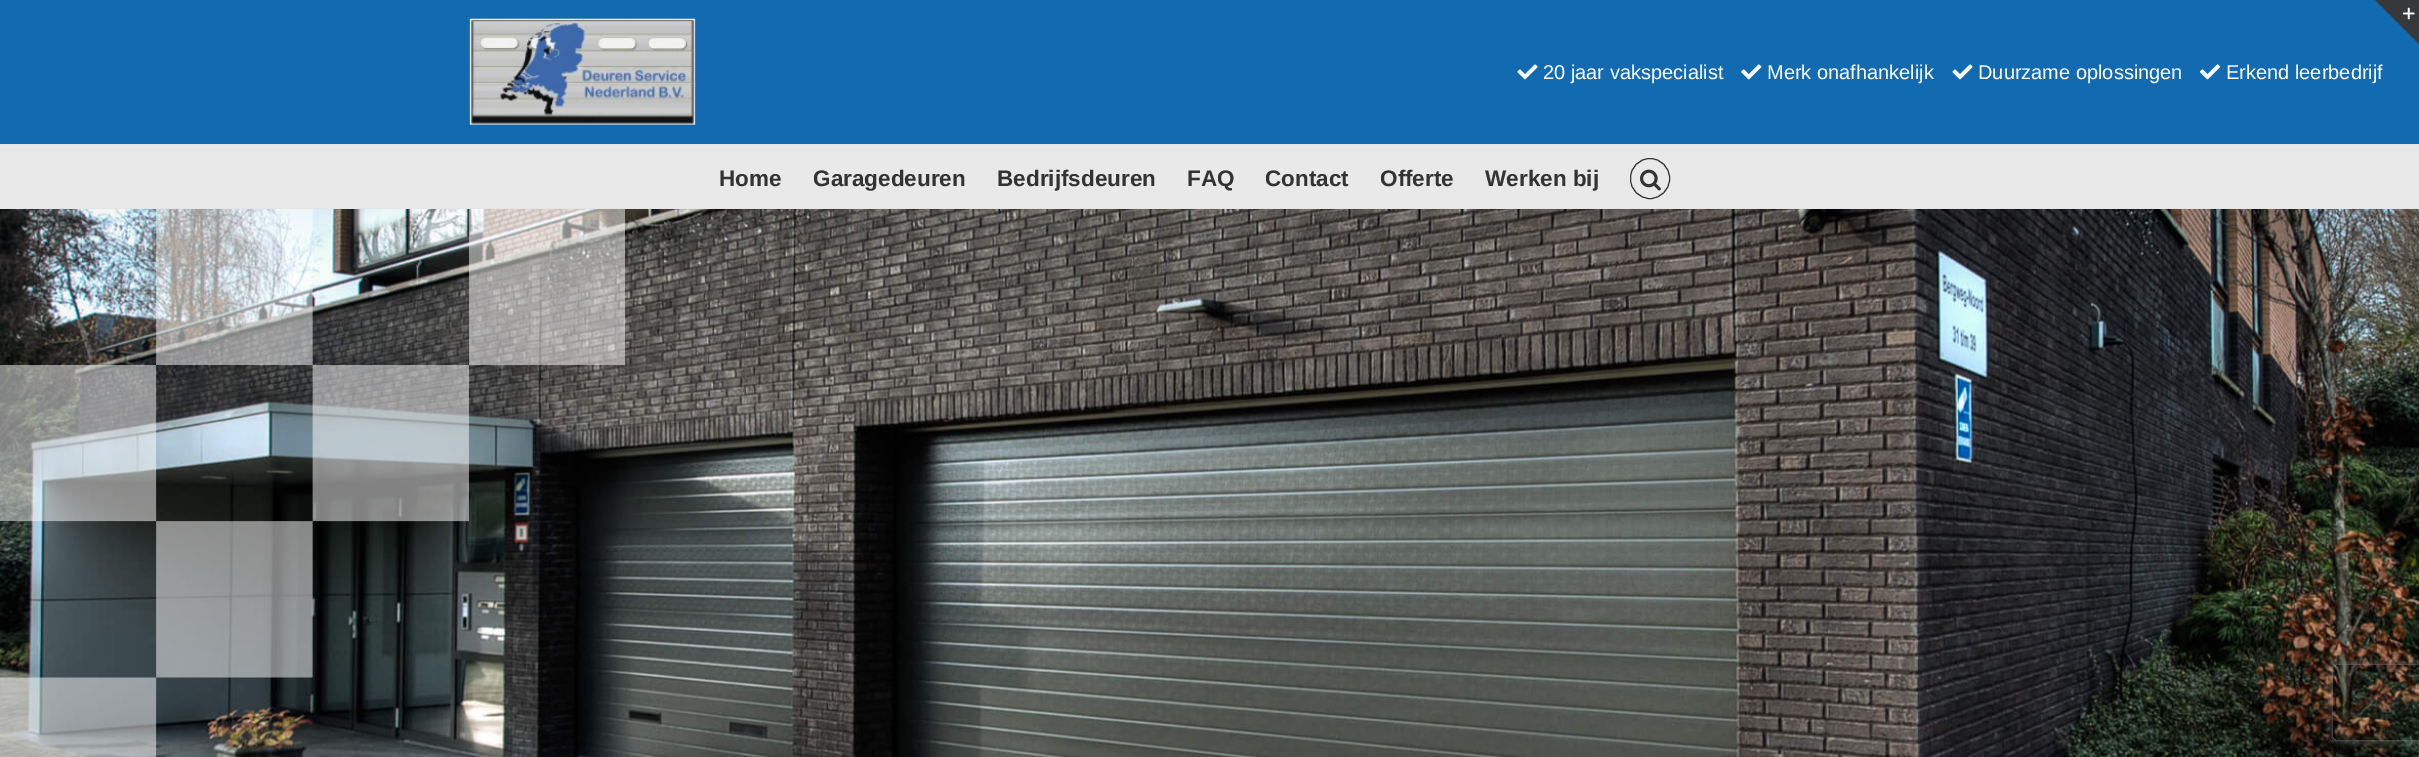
%!PS
<< /PageSize [2419 757] /PageUsesTransparency true >> setpagedevice
/m/moveto load def
/l/rlineto load def
/c/rcurveto load def
/z/closepath load def
/f/fill load def
/s/stroke load def
/q/gsave load def
/Q_/grestore load def
/C { dup -16 bitshift 255 div exch dup -8 bitshift 255 and 255 div exch 255 and 255 div setrgbcolor } def
/F { [ exch dup neg 0 0 3 -1 roll 0 0 ] selectfont } def
/T { moveto show } def
/R { rectfill } def
/A { dup .setfillconstantalpha .setstrokeconstantalpha } def
/Q { 5 dict begin { /r /h /w /y /x } { exch def } forall
  x r add y moveto x w add y 2 copy h add r arct x w add y h add x 1 index r arct
  x y h add x y r arct x y 2 copy exch w add exch r arct closepath end } def
/S { 12 dict begin { /a /b /q /h /w /y /x } { exch def } forall gsave /was 0 def
  9 -2 -9 { dup b mul 4 div /e exch def 1 sub .425 mul 2.718 exch exp 1 add a .99 .min exch div /now exch def
    1 1 now sub 1 was sub div sub A /was now def
    w h .min e 2 mul add 0 gt { x e sub y e sub w e 2 mul add h e 2 mul add
      q e add b .6 mul add w h .min 2 div e add .min 0 .max Q fill } if } for grestore end } def
/I { 5 dict begin { /h /w /y /x /name } { exch def } forall
  gsave x y translate w h scale
  w h 8 [w 0 0 h 0 0] name (r) file false 3 colorimage grestore end } def
0 .pushpdf14devicefilter
0 757 translate 1 -1 scale
4 setmiterlimit
16#FFFFFF C
0 0 2419 757 R
16#126AB1 C
0 0 2419 144 R
16#363839 C
2375 0 m 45 0 l 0 45 l z f
(1.rgb) 2403 7 12 13 I
16#E5E5E5 C
0 144 2419 1 R
(2.rgb) 469 18 227 107 I
(3.rgb) 1517 64 21 16 I
/LiberationSans-Regular 20 F
16#FFFFFF C
(20 jaar vakspecialist) 1543 79 T
(4.rgb) 1741 64 21 16 I
(Merk onafhankelijk) 1767 79 T
(3.rgb) 1952 64 21 16 I
(Duurzame oplossingen) 1978 79 T
(5.rgb) 2200 64 20 16 I
(Erkend leerbedrijf) 2226 79 T
16#E9E9E9 C
0 145 2419 63 R
16#E5E5E5 C
0 208 2419 1 R
/LiberationSans-Bold 22.5 F
16#333333 C
(Home) 719 186 T
(Garagedeuren) 813 186 T
(Bedrijfsdeuren) 997 186 T
(FAQ) 1187 186 T
(Contact) 1265 186 T
(Offerte) 1380 186 T
(Werken bij) 1485 186 T
1630.5 158.5 39 40 19.5 Q s
(6.rgb) 1640 169 21 22 I
(7.rgb) 0 209 2419 548 I
(8.rgb) 0 209 625 548 I
q
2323 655 m 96 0 l 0 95 l -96 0 l z 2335.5 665 m 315 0 l 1.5 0 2.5 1 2.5 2.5 c 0 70 l 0 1.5 -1 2.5 -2.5 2.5 c -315 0 l -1.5 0 -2.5 -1 -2.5 -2.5 c 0 -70 l 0 -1.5 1 -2.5 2.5 -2.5 c z eoclip newpath
16#808080 C
2333 665 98 75 2.5 3 1 S
Q_
.poppdf14devicefilter showpage
